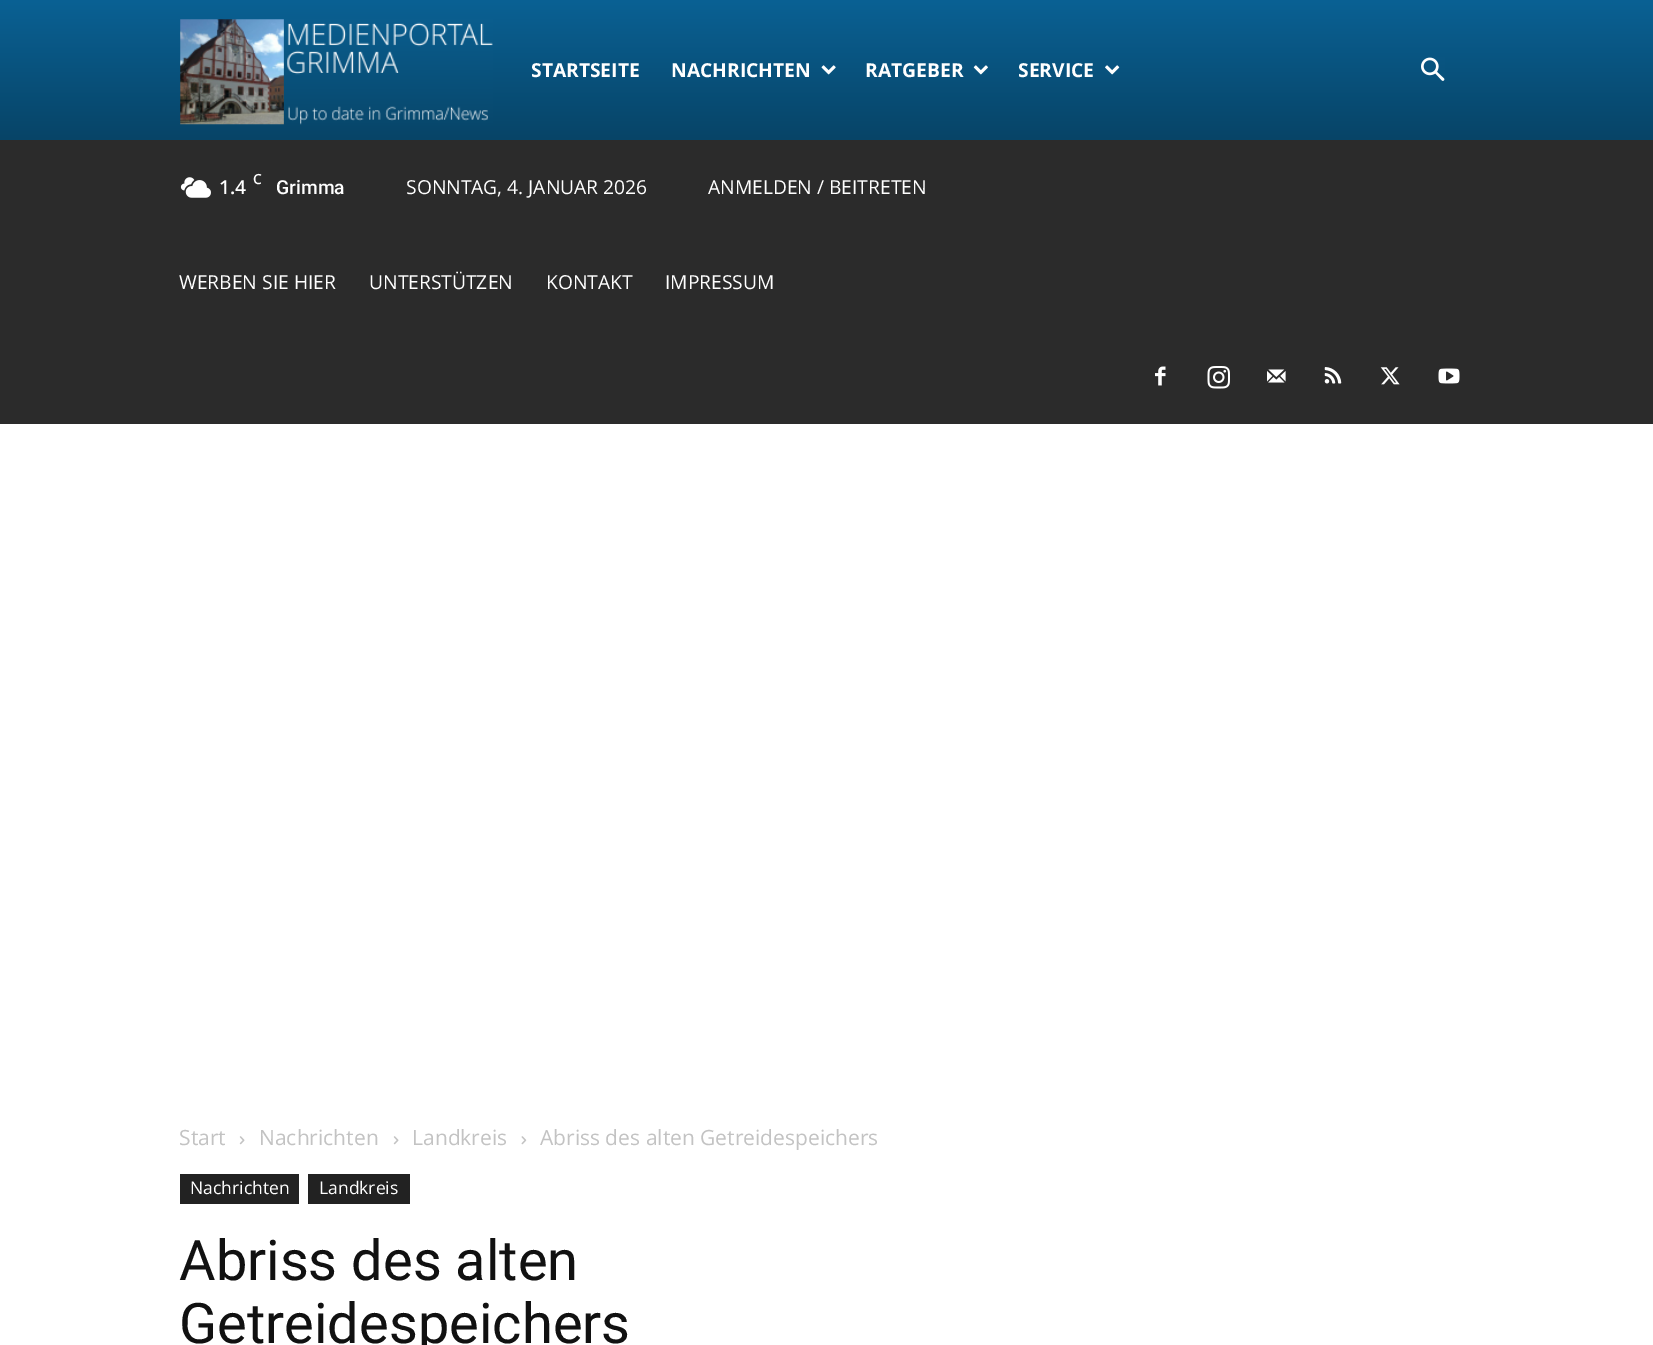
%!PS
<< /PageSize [1653 1345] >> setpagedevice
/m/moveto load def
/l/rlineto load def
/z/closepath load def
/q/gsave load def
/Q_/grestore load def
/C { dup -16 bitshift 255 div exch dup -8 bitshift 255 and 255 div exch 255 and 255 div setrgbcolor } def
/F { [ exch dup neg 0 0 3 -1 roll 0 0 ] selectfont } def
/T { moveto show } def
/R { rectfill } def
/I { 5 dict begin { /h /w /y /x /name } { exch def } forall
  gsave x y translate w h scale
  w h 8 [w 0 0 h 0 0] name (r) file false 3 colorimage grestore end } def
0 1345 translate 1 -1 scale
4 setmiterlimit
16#FFFFFF C
0 0 1653 1345 R
q 0 0 m 1653 0 l 0 140 l -1653 0 l z clip newpath
<< /ShadingType 2 /ColorSpace /DeviceRGB /Coords [827 0 827 140] /Extend [true true] /Function << /FunctionType 2 /Domain [0 1] /C0 [.039 .38 .58] /C1 [.027 .267 .404] /N 1 >> >> shfill Q_
(1.rgb) 180 19 313 106 I
/OpenSans-Bold 19.25 F
(STARTSEITE) 531 77 T
(NACHRICHTEN) 671 77 T
(2.rgb) 821 65 15 10 I
(RATGEBER) 865 77 T
(3.rgb) 973 65 15 10 I
(SERVICE) 1018 77 T
(4.rgb) 1105 65 15 10 I
(5.rgb) 1421 57 24 24 I
16#2B2B2B C
0 140 1653 284 R
(6.rgb) 180 177 31 21 I
/OpenSans-SemiBold 19.25 F
16#FFFFFF C
(1.4) 219 194 T
/OpenSans-SemiBold 14 F
(C) 253 184 T
/Roboto-Medium 19.25 F
(Grimma) 276 194 T
/OpenSans-Regular 19.25 F
(SONNTAG, 4. JANUAR 2026) 406 194 T
(ANMELDEN / BEITRETEN) 708 194 T
(WERBEN SIE HIER) 179 289 T
(UNTERSTÜTZEN) 369 289 T
(KONTAKT) 546 289 T
(IMPRESSUM) 665 289 T
(7.rgb) 1155 366 11 20 I
(8.rgb) 1207 366 23 23 I
(9.rgb) 1267 369 19 14 I
(10.rgb) 1324 367 18 17 I
(11.rgb) 1380 367 20 18 I
(12.rgb) 1438 368 22 16 I
/OpenSans-Regular 21 F
16#C3C3C3 C
(Start) 179 1145 T
(13.rgb) 239 1136 6 9 I
(Nachrichten) 259 1145 T
(13.rgb) 393 1136 6 9 I
(Landkreis) 412 1145 T
(14.rgb) 521 1136 6 9 I
(Abriss des alten Getreidespeichers) 540 1145 T
16#222222 C
180 1174 119 30 R
/OpenSans-Regular 17.5 F
16#FFFFFF C
(Nachrichten) 190 1194 T
16#222222 C
308 1174 102 30 R
16#FFFFFF C
(Landkreis) 319 1194 T
/Roboto-Regular 56 F
16#111111 C
(Abriss des alten) 179 1280 T
(Getreidespeichers) 179 1343 T
showpage
